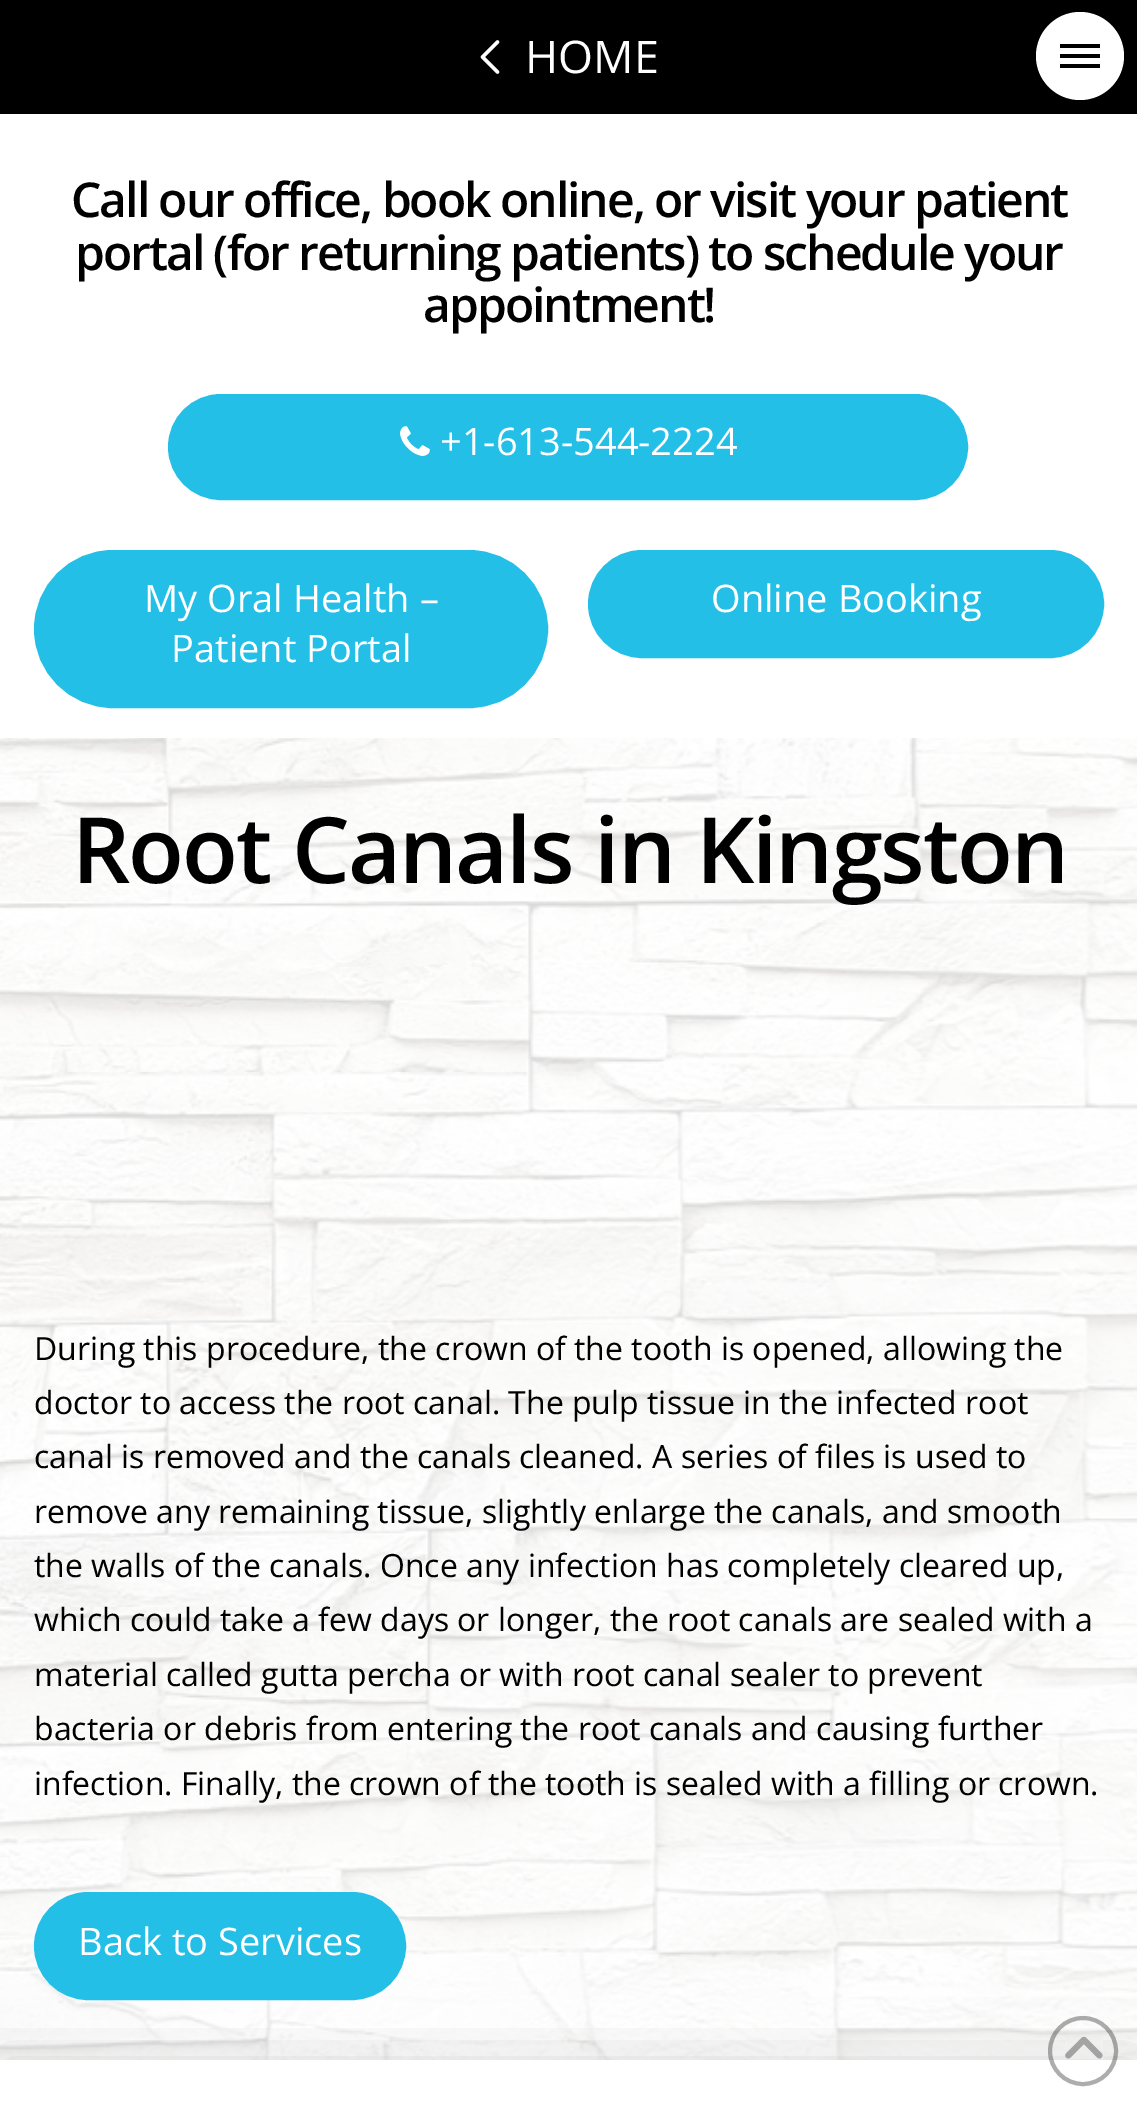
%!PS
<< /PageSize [1137 2106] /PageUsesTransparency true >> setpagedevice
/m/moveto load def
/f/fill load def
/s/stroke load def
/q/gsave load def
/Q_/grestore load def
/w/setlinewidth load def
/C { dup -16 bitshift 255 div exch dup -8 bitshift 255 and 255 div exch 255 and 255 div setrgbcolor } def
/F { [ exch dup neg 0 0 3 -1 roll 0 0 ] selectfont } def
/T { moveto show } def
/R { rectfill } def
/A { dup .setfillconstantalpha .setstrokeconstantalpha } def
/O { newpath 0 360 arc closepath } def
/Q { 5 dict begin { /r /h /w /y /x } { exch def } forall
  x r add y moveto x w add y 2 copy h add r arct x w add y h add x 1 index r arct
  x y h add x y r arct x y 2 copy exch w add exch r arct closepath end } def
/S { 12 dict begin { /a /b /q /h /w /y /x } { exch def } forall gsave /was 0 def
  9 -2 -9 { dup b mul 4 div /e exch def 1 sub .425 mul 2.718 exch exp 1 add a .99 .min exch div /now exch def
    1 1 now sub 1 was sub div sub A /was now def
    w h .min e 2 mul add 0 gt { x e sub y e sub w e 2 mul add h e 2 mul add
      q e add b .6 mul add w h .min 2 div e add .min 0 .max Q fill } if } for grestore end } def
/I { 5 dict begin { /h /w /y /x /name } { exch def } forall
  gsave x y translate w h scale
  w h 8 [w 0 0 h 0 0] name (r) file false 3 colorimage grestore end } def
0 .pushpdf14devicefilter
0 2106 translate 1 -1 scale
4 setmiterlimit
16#FFFFFF C
0 0 1137 2106 R
16#000000 C
0 0 1137 114 R
(1.rgb) 480 40 20 34 I
/OpenSans-Regular 45 F
16#FFFFFF C
(HOME) 525 73 T
1080 56 44 O f
16#000000 C
1060 44 40 4 R
1060 54 40 4 R
1060 64 40 4 R
/OpenSans-SemiBold 48 F
71 217 m -2.02 0 (Call our office, book online, or visit your patient) ashow
75 270 m -2.02 0 (portal \(for returning patients\) to schedule your) ashow
423 322 m -2.02 0 (appointment!) ashow
16#23BFE7 C
169 395 798 104 52 Q q f Q_
2 w
s
(2.rgb) 400 426 30 30 I
/OpenSans-Regular 38 F
16#FFFFFF C
(+1-613-544-2224) 440 455 T
16#23BFE7 C
35 551 512 156 78 Q q f Q_
s
16#FFFFFF C
(My Oral Health –) 144 612 T
(Patient Portal) 171 662 T
16#23BFE7 C
589 551 514 106 53 Q q f Q_
s
16#FFFFFF C
(Online Booking) 711 612 T
(3.rgb) 0 738 1137 1322 I
0.85 A
0 738 1137 584 R
/OpenSans-SemiBold 91.5 F
1 A
16#000000 C
72 883 m -2 0 (Root Canals in Kingston) ashow
0.85 A
16#FFFFFF C
0 1322 1137 530 R
/OpenSans-Regular 32 F
1 A
16#000000 C
(During this procedure, the crown of the tooth is opened, allowing the) 34 1360 T
(doctor to access the root canal. The pulp tissue in the infected root) 34 1414 T
(canal is removed and the canals cleaned. A series of files is used to) 34 1468 T
(remove any remaining tissue, slightly enlarge the canals, and smooth) 34 1523 T
(the walls of the canals. Once any infection has completely cleared up,) 34 1577 T
(which could take a few days or longer, the root canals are sealed with a) 34 1631 T
(material called gutta percha or with root canal sealer to prevent) 34 1686 T
(bacteria or debris from entering the root canals and causing further) 34 1740 T
(infection. Finally, the crown of the tooth is sealed with a filling or crown.) 34 1795 T
0.85 A
16#FFFFFF C
0 1852 1137 208 R
1 A
16#23BFE7 C
35 1893 370 106 53 Q q f Q_
s
/OpenSans-Regular 38 F
16#FFFFFF C
(Back to Services) 78 1955 T
q
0 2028 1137 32 rectclip
16#000000 C
0 2064 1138 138 0 32 .15 S
Q_
0.38 A
16#272727 C
4 w
1083 2051 33 O s
1 A
(4.rgb) 1065 2036 38 23 I
.poppdf14devicefilter showpage
